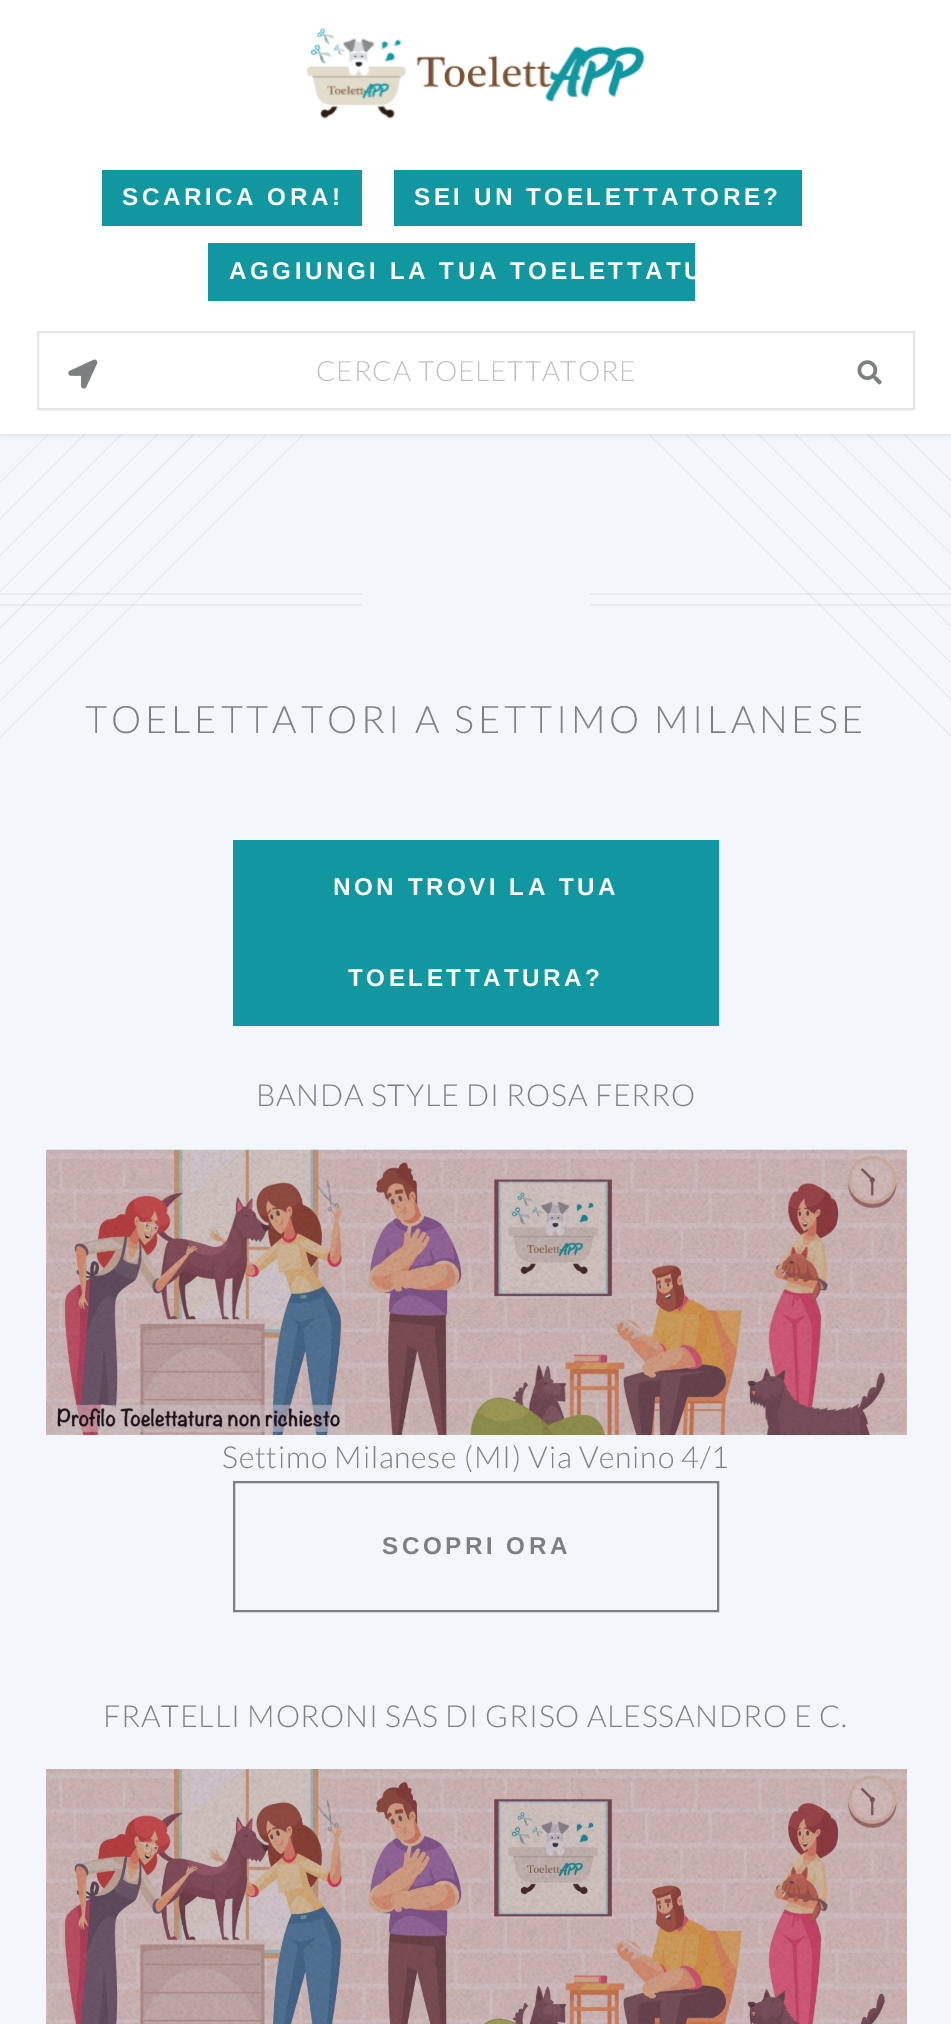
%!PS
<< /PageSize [951 2024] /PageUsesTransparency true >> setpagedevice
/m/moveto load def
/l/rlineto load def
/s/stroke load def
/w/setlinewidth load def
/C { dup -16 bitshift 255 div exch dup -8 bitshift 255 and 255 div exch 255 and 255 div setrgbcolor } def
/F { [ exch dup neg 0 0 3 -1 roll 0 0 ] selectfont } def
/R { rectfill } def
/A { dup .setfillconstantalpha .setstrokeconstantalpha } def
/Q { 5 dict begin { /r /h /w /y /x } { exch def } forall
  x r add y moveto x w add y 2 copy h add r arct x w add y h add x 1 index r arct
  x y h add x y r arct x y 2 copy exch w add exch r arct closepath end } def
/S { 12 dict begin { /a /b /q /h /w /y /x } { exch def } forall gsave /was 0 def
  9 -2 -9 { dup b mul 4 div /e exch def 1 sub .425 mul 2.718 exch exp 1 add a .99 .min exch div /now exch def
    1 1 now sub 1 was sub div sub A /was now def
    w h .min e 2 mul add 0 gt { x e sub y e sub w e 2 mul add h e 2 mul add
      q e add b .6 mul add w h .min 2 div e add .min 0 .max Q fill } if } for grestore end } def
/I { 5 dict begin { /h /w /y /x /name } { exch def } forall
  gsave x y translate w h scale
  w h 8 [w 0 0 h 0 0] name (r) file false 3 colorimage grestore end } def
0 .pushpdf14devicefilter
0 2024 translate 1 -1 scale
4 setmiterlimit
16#F3F6FA C
0 0 951 2024 R
16#E1E4E7 C
.6 w
649 434 m 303.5 303.5 l s
685.5 434 m 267 267 l s
722 434 m 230.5 230.5 l s
758.5 434 m 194 194 l s
795 434 m 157.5 157.5 l s
831 434 m 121.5 121.5 l s
867.5 434 m 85 85 l s
904 434 m 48.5 48.5 l s
0 737.5 m 303.5 -303.5 l s
0 701 m 267 -267 l s
0 664.5 m 230.5 -230.5 l s
0 628 m 194 -194 l s
0 591.5 m 157.5 -157.5 l s
0 555.5 m 121.5 -121.5 l s
0 519 m 85 -85 l s
0 482.5 m 48.5 -48.5 l s
16#000000 C
0 2 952 434 0 2 .07 S
16#FFFFFF C
0 0 951 434 R
(1.rgb) 307 27 338 92 I
16#11979F C
102 170 260 56 R
/LiberationSans-Bold 24.25 F
16#FFFFFF C
122 205 m 3.5 0 (SCARICA ORA!) ashow
16#11979F C
394 170 408 56 R
16#FFFFFF C
414 205 m 3.5 0 (SEI UN TOELETTATORE?) ashow
16#11979F C
208 243 487 58 R
16#FFFFFF C
229 279 m 3.5 0 (AGGIUNGI LA TUA TOELETTATU) ashow
16#E5E6E6 C
2 w
38 332 876 77 rectstroke
(2.rgb) 68 359 30 30 I
/Lato-Light 28 F
16#BEC0C0 C
316 381 m .75 0 (CERCA TOELETTATORE) ashow
(3.rgb) 857 360 25 25 I
0.1 A
16#7C8081 C
0 593 362 2 R
0 604 362 2 R
590 593 361 2 R
590 604 361 2 R
/Lato-Light 37.9 F
1 A
85 733 m 3.8 0 (TOELETTATORI A SETTIMO MILANESE) ashow
16#11979F C
233 840 486 186 R
/LiberationSans-Bold 24.25 F
16#FFFFFF C
333 895 m 3.5 0 (NON TROVI LA TUA) ashow
348 986 m 3.5 0 (TOELETTATURA?) ashow
/Lato-Light 30.3 F
16#7C8081 C
256 1106 m .75 0 (BANDA STYLE DI ROSA FERRO) ashow
(4.rgb) 46 1149 861 286 I
(5.rgb) 46 1149 861 286 I
222 1468 m .75 0 (Settimo Milanese \(MI\) Via Venino 4/1) ashow
234 1482 484 129 rectstroke
/LiberationSans-Bold 24.25 F
382 1554 m 3.5 0 (SCOPRI ORA) ashow
/Lato-Light 30.3 F
103 1727 m .75 0 (FRATELLI MORONI SAS DI GRISO ALESSANDRO E C.) ashow
(6.rgb) 46 1769 861 255 I
(7.rgb) 46 1769 861 255 I
.poppdf14devicefilter showpage
